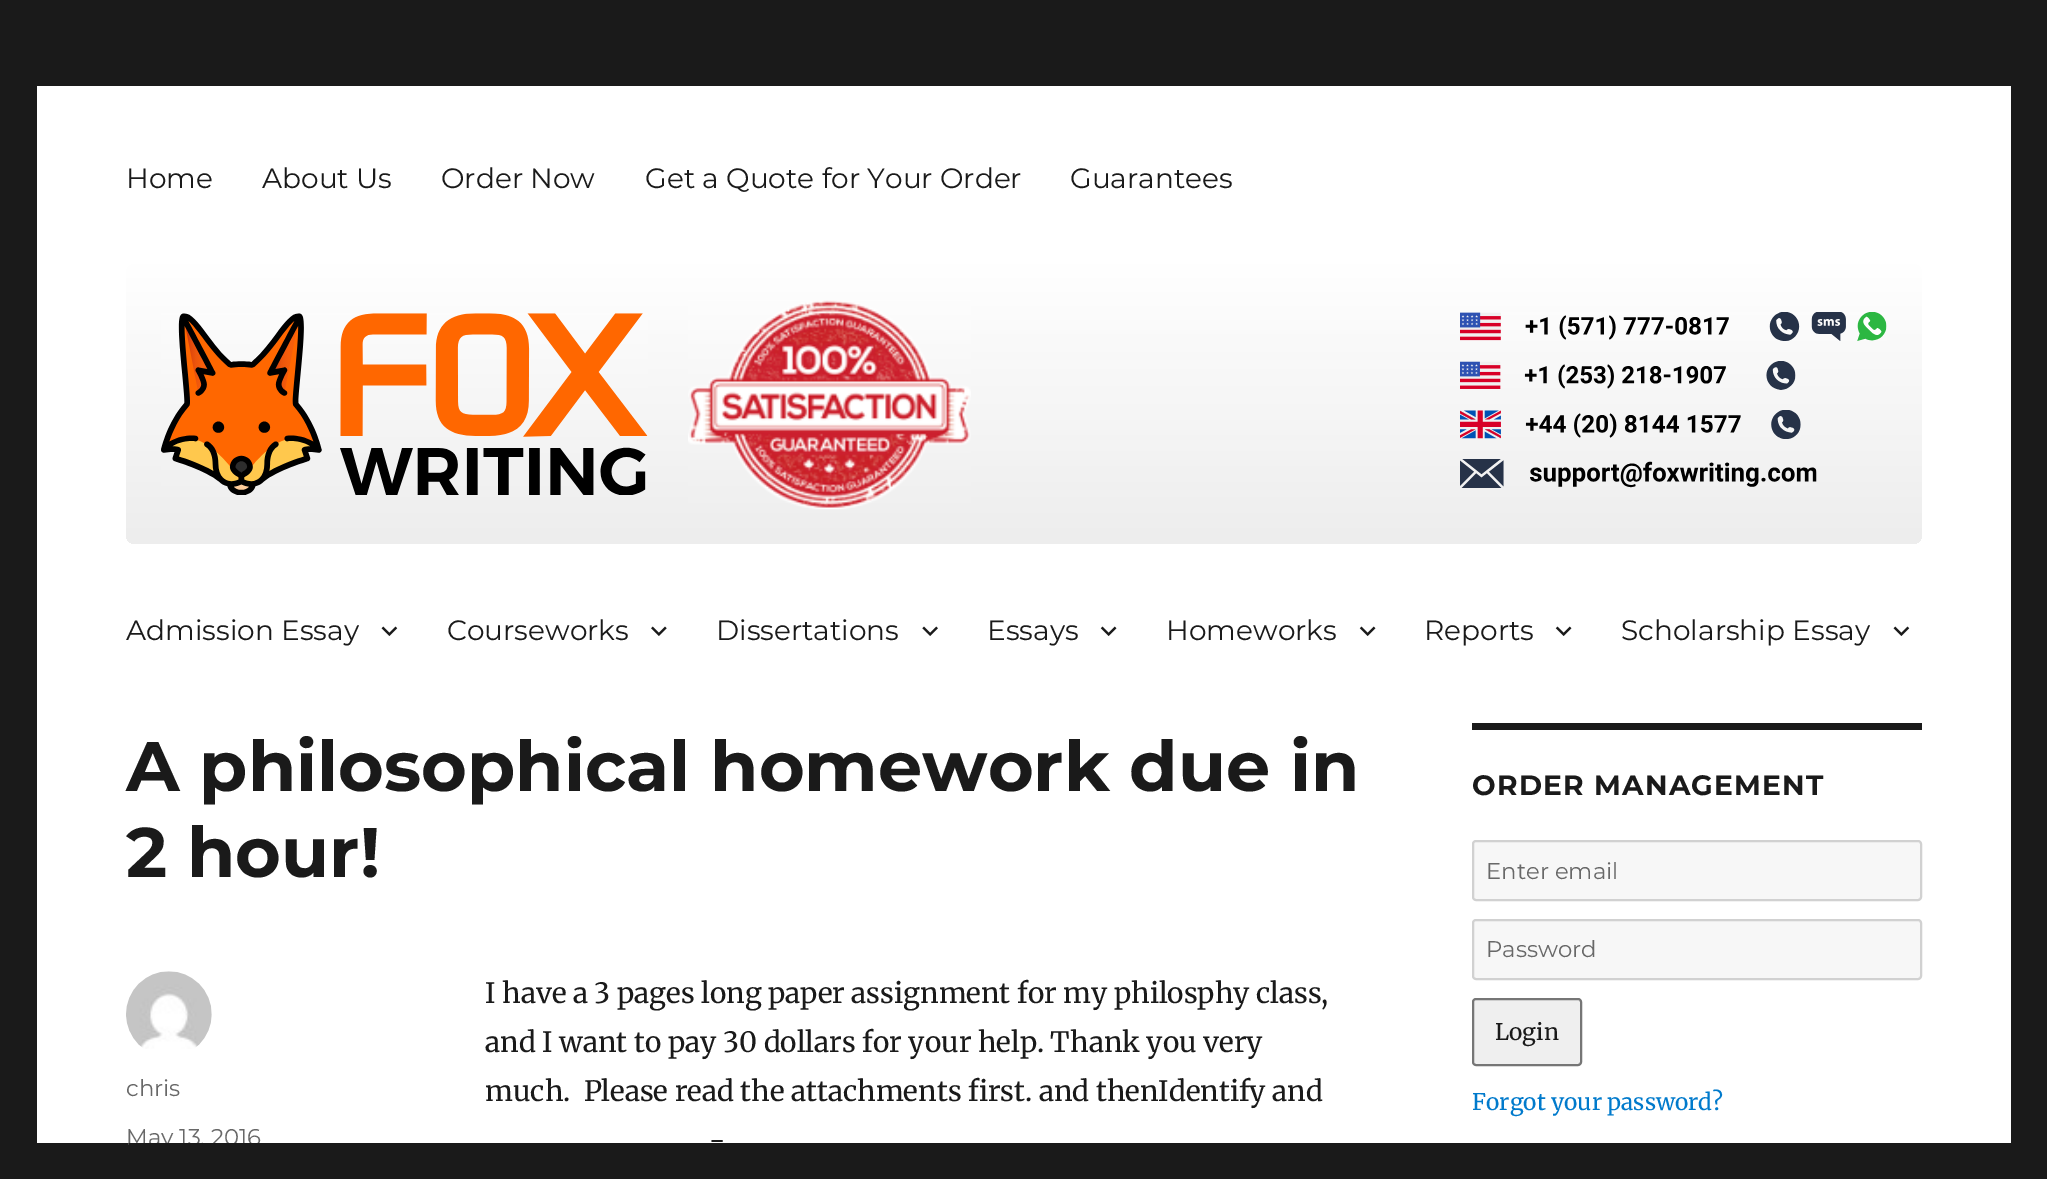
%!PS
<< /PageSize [2047 1179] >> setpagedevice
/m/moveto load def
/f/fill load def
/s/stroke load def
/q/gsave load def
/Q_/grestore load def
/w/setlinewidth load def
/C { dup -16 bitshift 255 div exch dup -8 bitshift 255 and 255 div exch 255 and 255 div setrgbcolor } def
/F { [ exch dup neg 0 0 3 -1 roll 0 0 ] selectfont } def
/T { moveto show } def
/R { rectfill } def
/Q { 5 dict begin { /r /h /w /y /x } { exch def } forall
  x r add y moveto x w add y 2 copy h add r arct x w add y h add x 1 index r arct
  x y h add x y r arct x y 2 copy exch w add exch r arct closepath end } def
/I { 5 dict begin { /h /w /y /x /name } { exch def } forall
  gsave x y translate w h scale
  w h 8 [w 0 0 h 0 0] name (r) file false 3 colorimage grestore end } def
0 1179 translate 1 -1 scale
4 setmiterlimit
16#1A1A1A C
0 0 2047 1179 R
16#FFFFFF C
37 86 1974 1057 R
/Montserrat-Regular 28 F
16#1A1A1A C
(Home) 126 188 T
(About Us) 262 188 T
(Order Now) 441 188 T
(Get a Quote for Your Order) 645 188 T
(Guarantees) 1070 188 T
q 126 264 1796 280 9 Q clip newpath
<< /ShadingType 2 /ColorSpace /DeviceRGB /Coords [1024 264 1024 544] /Extend [true true] /Function << /FunctionType 3 /Domain [0 1] /Functions [<< /FunctionType 2 /Domain [0 1] /C0 [1 1 1] /C1 [.965 .965 .965] /N 1 >> << /FunctionType 2 /Domain [0 1] /C0 [.965 .965 .965] /C1 [.929 .929 .929] /N 1 >>] /Bounds [.47] /Encode [0 1 0 1] >> >> shfill Q_
(1.rgb) 161 313 487 182 I
(2.rgb) 688 300 283 210 I
(3.rgb) 1460 312 427 29 I
(4.rgb) 1460 361 336 29 I
(5.rgb) 1460 410 341 29 I
(6.rgb) 1460 459 357 29 I
(Admission Essay) 126 640 T
(7.rgb) 381 626 17 10 I
(Courseworks) 447 640 T
(8.rgb) 651 626 16 10 I
(Dissertations) 716 640 T
(9.rgb) 922 626 16 10 I
(Essays) 987 640 T
(10.rgb) 1100 626 17 10 I
(Homeworks) 1166 640 T
(10.rgb) 1359 626 17 10 I
(Reports) 1424 640 T
(10.rgb) 1555 626 17 10 I
(Scholarship Essay) 1621 640 T
(7.rgb) 1893 626 17 10 I
/Montserrat-Bold 70 F
(A philosophical homework due in) 126 791 T
(2 hour!) 126 877 T
(11.rgb) 126 971 86 78 I
/Montserrat-Regular 22.75 F
16#686868 C
(chris) 126 1096 T
(May 13, 2016) 126 1145 T
/Merriweather-Regular 28 F
16#1A1A1A C
(I have a 3 pages long paper assignment for my philosphy class,) 485 1003 T
(and I want to pay 30 dollars for your help. Thank you very) 485 1052 T
(much.  Please read the attachments first. and thenIdentify and) 485 1101 T
(-) 709 1150 T
1472 723 450 7 R
/Montserrat-Bold 28 F
1472 795 m 1.25 0 (ORDER MANAGEMENT) ashow
16#F7F7F7 C
1473 841 448 59 3 Q q f Q_
16#D1D1D1 C
2 w
s
/Montserrat-Regular 22.75 F
16#686868 C
(Enter email) 1486 879 T
16#F7F7F7 C
1473 920 448 59 3 Q q f Q_
16#D1D1D1 C
s
16#686868 C
(Password) 1486 957 T
16#EFEFEF C
1473 999 108 66 3 Q q f Q_
16#767676 C
s
/Merriweather-Regular 22.75 F
16#1A1A1A C
(Login) 1495 1040 T
16#007ACC C
(Forgot your password?) 1472 1110 T
16#1A1A1A C
129 1143 131 7 R
showpage
